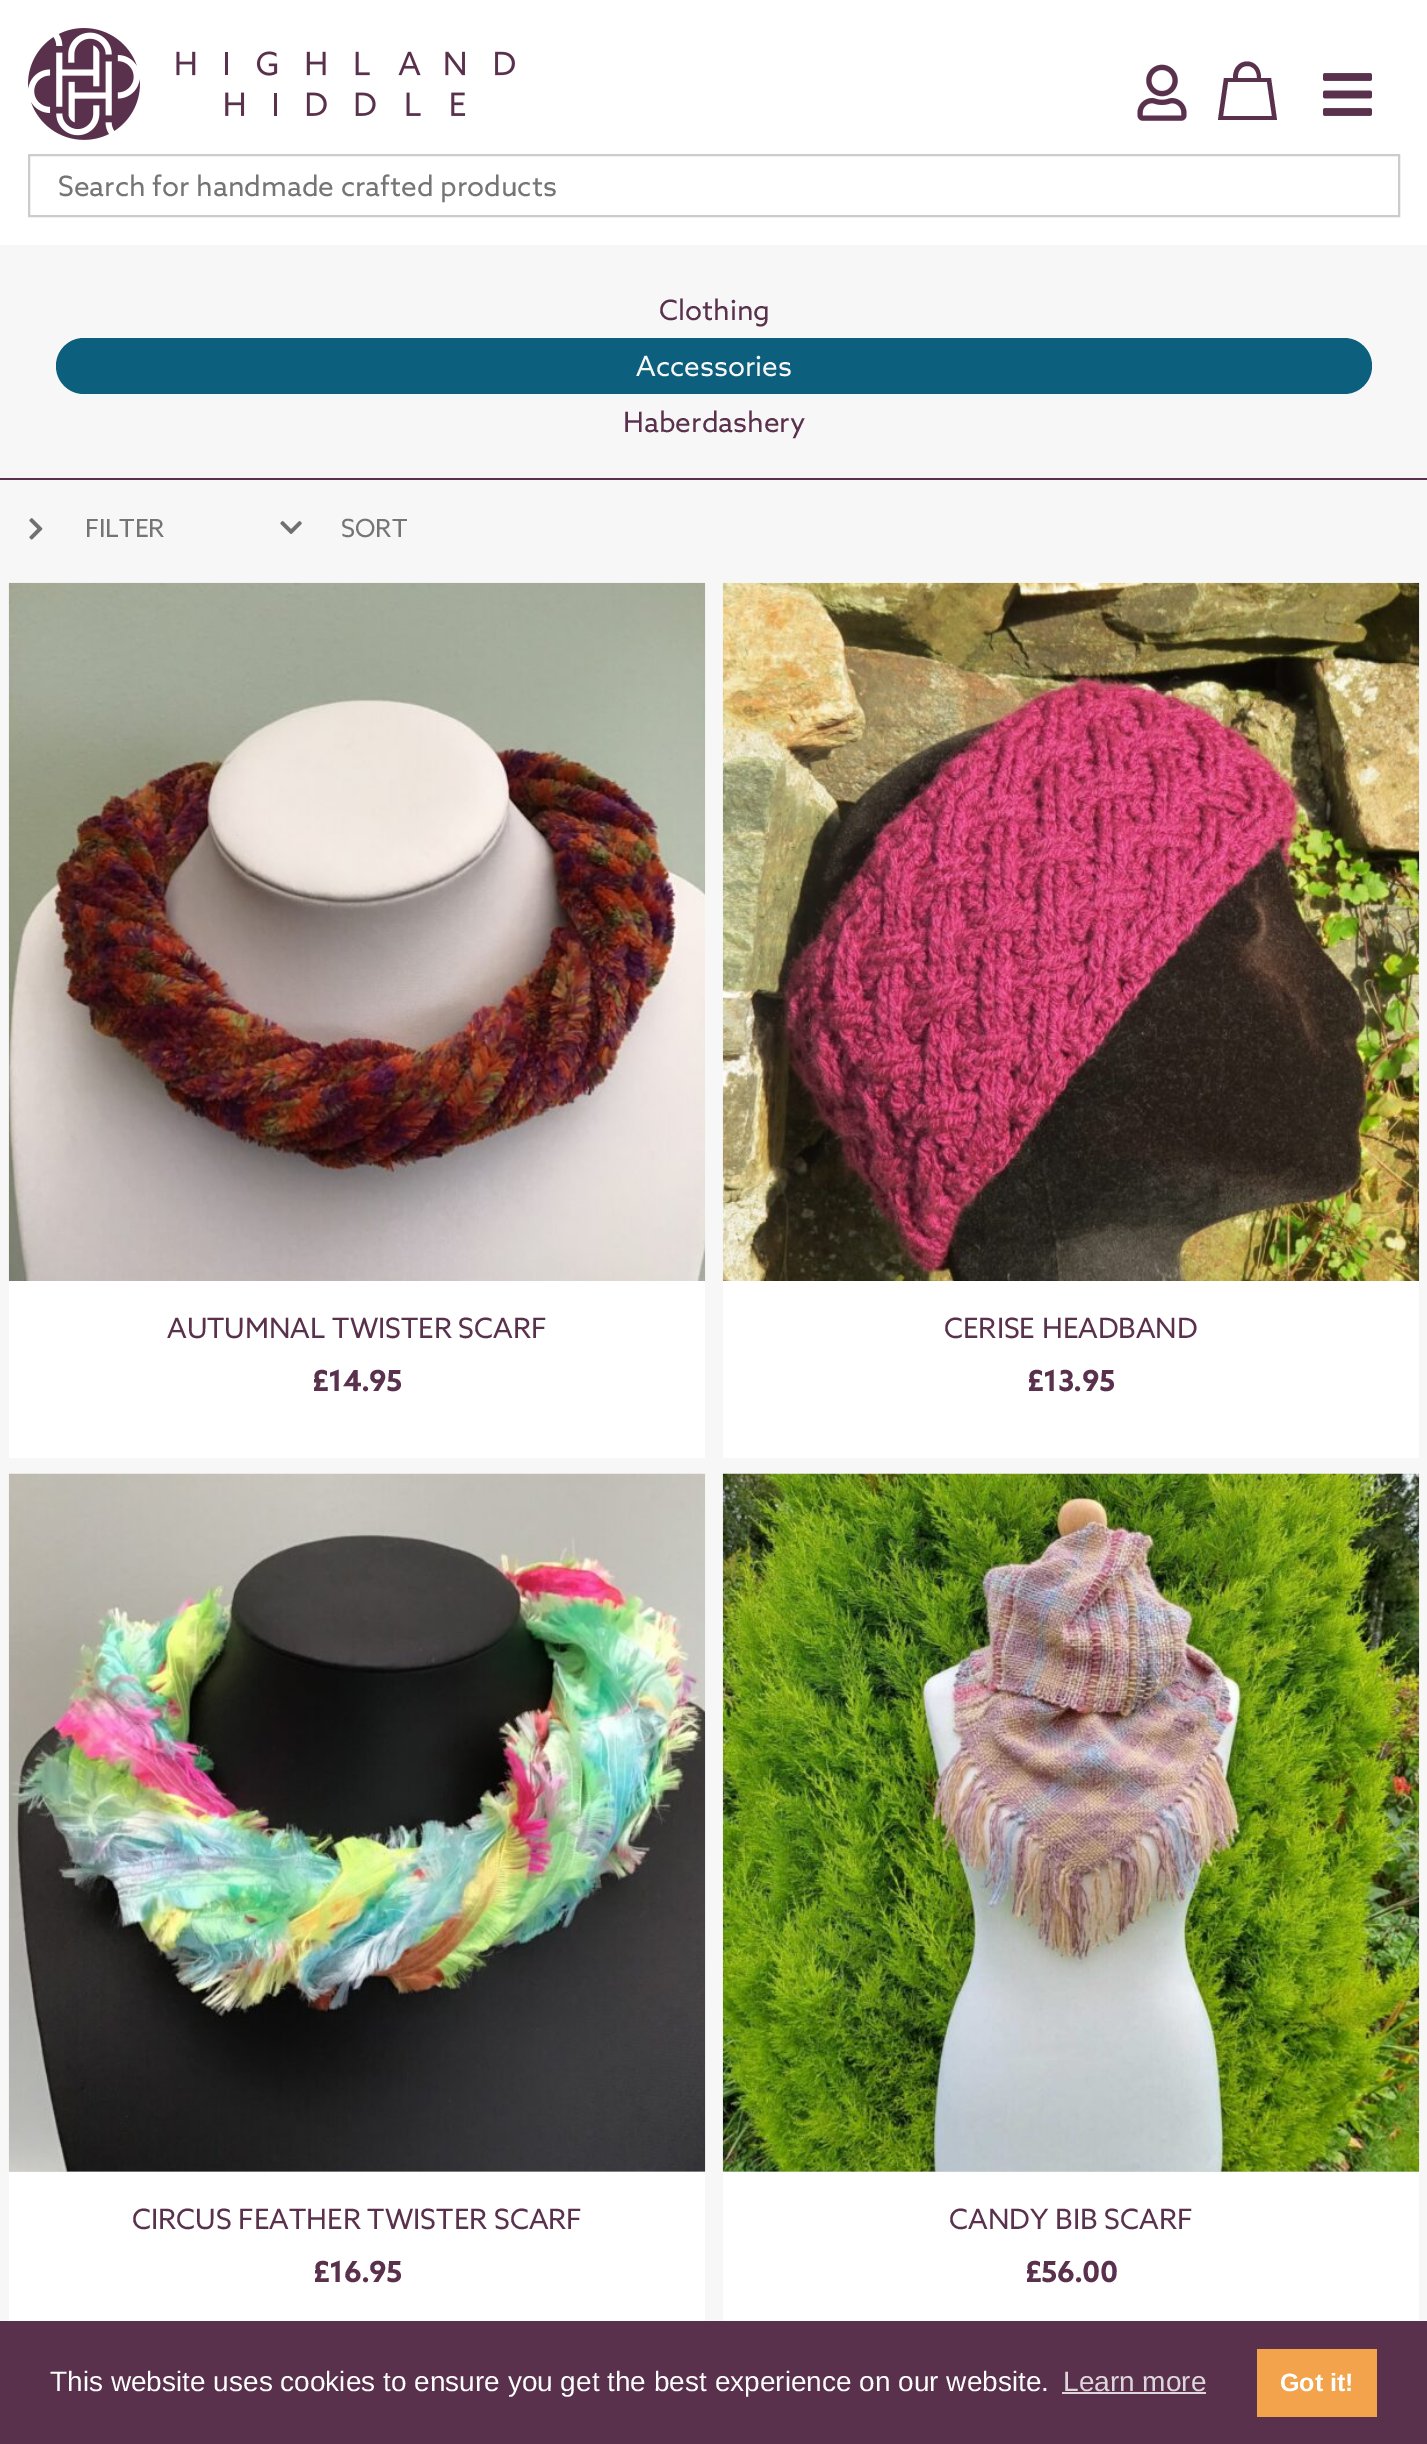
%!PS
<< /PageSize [1427 2444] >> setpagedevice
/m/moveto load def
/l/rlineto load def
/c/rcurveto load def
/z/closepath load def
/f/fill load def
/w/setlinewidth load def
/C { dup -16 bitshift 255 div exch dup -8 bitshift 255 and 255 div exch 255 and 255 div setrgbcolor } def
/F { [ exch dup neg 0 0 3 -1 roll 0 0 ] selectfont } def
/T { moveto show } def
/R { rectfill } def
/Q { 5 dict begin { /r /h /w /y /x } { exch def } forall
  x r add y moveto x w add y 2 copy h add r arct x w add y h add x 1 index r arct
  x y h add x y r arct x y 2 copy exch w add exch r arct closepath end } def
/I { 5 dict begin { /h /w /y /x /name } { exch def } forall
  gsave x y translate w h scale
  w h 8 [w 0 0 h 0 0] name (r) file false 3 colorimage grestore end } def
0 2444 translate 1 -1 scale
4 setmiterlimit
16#FFFFFF C
0 0 1427 2444 R
(1.rgb) 1323 73 49 43 I
(2.rgb) 28 28 487 112 I
(3.rgb) 1137 64 50 57 I
16#5A314C C
1271 78 m -10 0 l 0 -22 -28 -22 -28 0 c -9 0 l -6 42 l 59 0 l z 1238 75 m 1 -12 19 -13 19 3 c -19 0 l z 1228 82 m 39 0 l 5 34 l -49 0 l z f
16#CCCCCC C
2 w
29 155 1370 61 rectstroke
/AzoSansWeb-Regular 28 F
16#757575 C
(Search for handmade crafted products) 58 196 T
16#F7F7F7 C
0 245 1427 2076 R
16#5A314C C
0 478 1427 2 R
(Clothing) 659 320 T
16#0C5F7D C
56 338 1316 56 28 Q f
16#F7F7F7 C
(Accessories) 636 376 T
16#5A314C C
(Haberdashery) 623 432 T
(4.rgb) 29 518 14 22 I
/AzoSansWeb-Regular 25 F
16#757575 C
(FILTER) 85 537 T
(5.rgb) 280 521 22 13 I
(SORT) 341 537 T
16#FFFFFF C
9 1281 696 177 R
(6.rgb) 8 582 698 699 I
/AzoSansWeb-Regular 28 F
16#5A314C C
(AUTUMNAL TWISTER SCARF) 167 1338 T
/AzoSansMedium-Bold 28 F
(£14.95) 312 1391 T
16#FFFFFF C
723 1281 696 177 R
(7.rgb) 722 582 698 699 I
/AzoSansWeb-Regular 28 F
16#5A314C C
(CERISE HEADBAND) 944 1338 T
/AzoSansMedium-Bold 28 F
(£13.95) 1027 1391 T
16#FFFFFF C
9 2172 696 149 R
16#DDDDDD C
9 2171 696 1 R
(8.rgb) 8 1473 698 699 I
/AzoSansWeb-Regular 28 F
16#5A314C C
(CIRCUS FEATHER TWISTER SCARF) 132 2229 T
/AzoSansMedium-Bold 28 F
(£16.95) 313 2282 T
16#FFFFFF C
723 2172 696 149 R
16#DDDDDD C
723 2171 696 1 R
(9.rgb) 722 1473 698 699 I
/AzoSansWeb-Regular 28 F
16#5A314C C
(CANDY BIB SCARF) 949 2229 T
/AzoSansMedium-Bold 28 F
(£56.00) 1025 2282 T
0 2321 1427 123 R
/LiberationSans-Regular 28 F
16#FFFFFF C
(This website uses cookies to ensure you get the best experience on our website.) 50 2391 T
16#DED6DB C
(Learn more) 1063 2391 T
1062 2392 144 2 R
16#F2A34B C
1257 2349 120 68 R
/LiberationSans-Bold 25 F
16#FFFFFF C
(Got it!) 1280 2391 T
showpage
